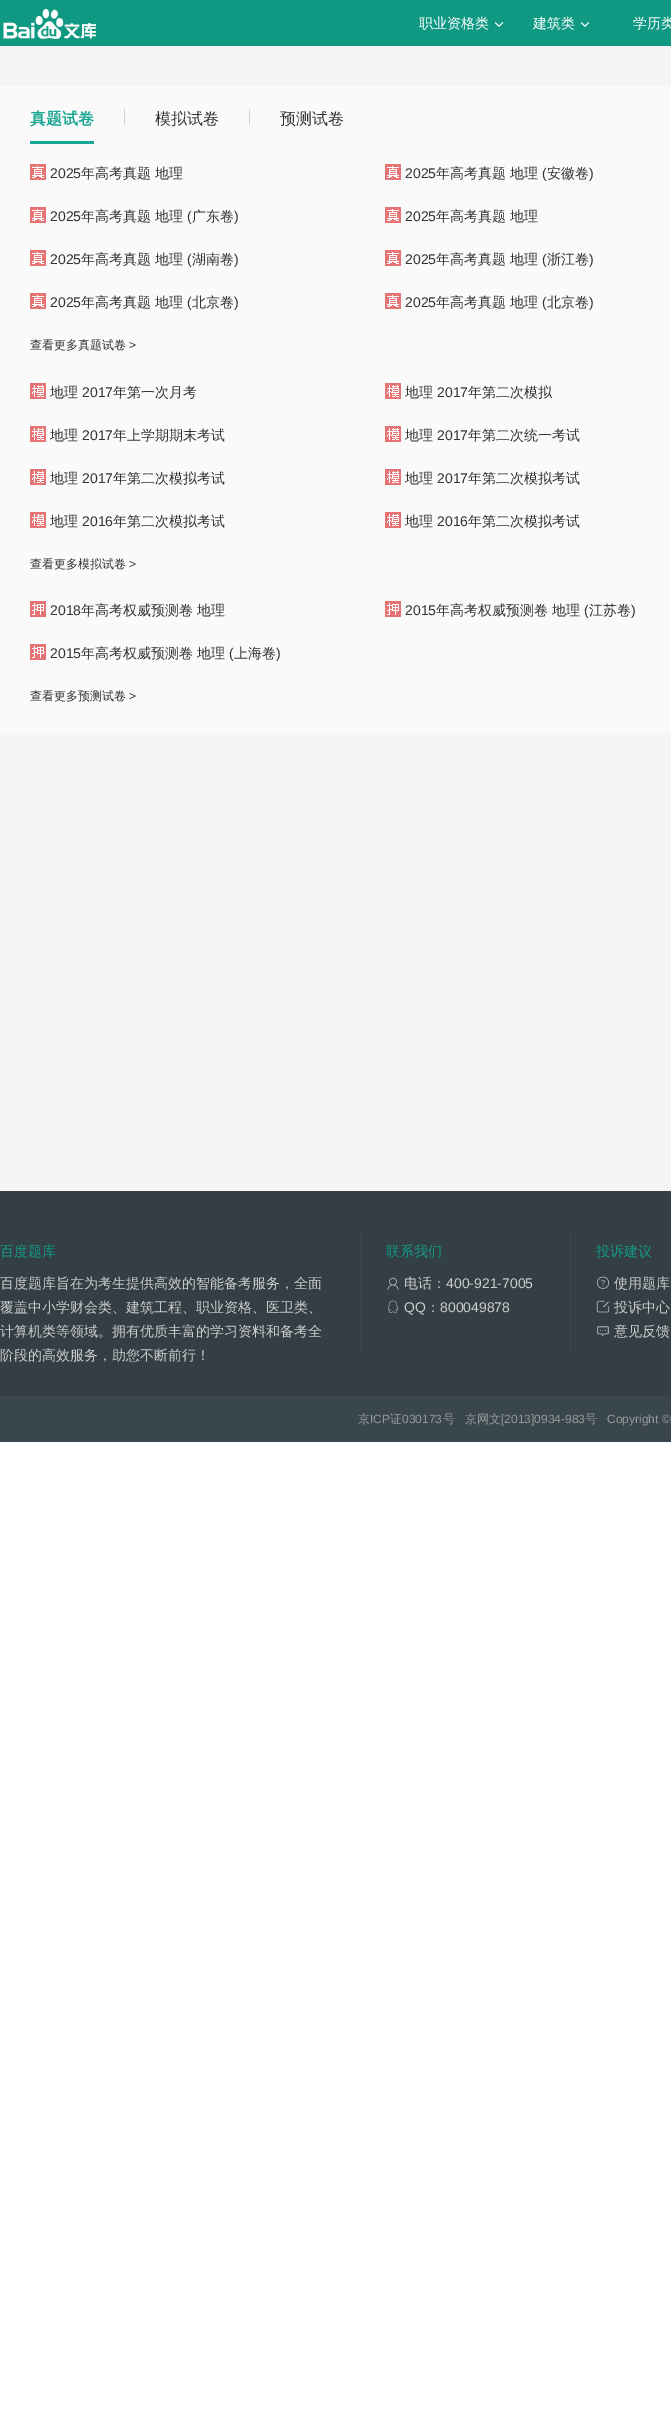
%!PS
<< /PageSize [671 2414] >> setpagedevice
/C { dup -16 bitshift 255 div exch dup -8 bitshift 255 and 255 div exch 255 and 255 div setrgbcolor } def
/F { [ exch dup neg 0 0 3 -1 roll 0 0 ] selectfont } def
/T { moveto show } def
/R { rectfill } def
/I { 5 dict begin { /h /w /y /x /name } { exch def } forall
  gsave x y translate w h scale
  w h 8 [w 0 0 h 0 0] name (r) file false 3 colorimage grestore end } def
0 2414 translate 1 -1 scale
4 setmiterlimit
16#FFFFFF C
0 0 671 2414 R
16#0F9982 C
0 0 671 46 R
(1.rgb) 3 9 93 30 I
/WenQuanYiZenHei-Medium 14 F
16#FFFFFF C
(职业资格类) 419 28 T
(2.rgb) 494 22 10 5 I
(建筑类) 533 28 T
(2.rgb) 580 22 10 5 I
(学历类) 633 28 T
16#F5F5F5 C
0 46 671 1145 R
16#FAFAFA C
0 86 671 647 R
16#19A693 C
30 141 64 3 R
/WenQuanYiZenHei-Bold 16 F
(真题试卷) 30 124 T
16#D3D3D3 C
124 109 1 16 R
/WenQuanYiZenHei-Medium 16 F
16#333333 C
(模拟试卷) 155 124 T
16#D3D3D3 C
249 109 1 16 R
16#333333 C
(预测试卷) 280 124 T
(3.rgb) 30 164 16 16 I
/LiberationSans-Regular 14 F
(2025) 50 178 T
/WenQuanYiZenHei-Medium 14 F
(年高考真题 地理) 81 178 T
(3.rgb) 385 164 16 16 I
/LiberationSans-Regular 14 F
(2025) 405 178 T
/WenQuanYiZenHei-Medium 14 F
(年高考真题 地理) 436 178 T
/LiberationSans-Regular 14 F
(\() 542 178 T
/WenQuanYiZenHei-Medium 14 F
(安徽卷) 547 178 T
/LiberationSans-Regular 14 F
(\)) 589 178 T
(3.rgb) 30 207 16 16 I
(2025) 50 221 T
/WenQuanYiZenHei-Medium 14 F
(年高考真题 地理) 81 221 T
/LiberationSans-Regular 14 F
(\() 187 221 T
/WenQuanYiZenHei-Medium 14 F
(广东卷) 192 221 T
/LiberationSans-Regular 14 F
(\)) 234 221 T
(3.rgb) 385 207 16 16 I
(2025) 405 221 T
/WenQuanYiZenHei-Medium 14 F
(年高考真题 地理) 436 221 T
(3.rgb) 30 250 16 16 I
/LiberationSans-Regular 14 F
(2025) 50 264 T
/WenQuanYiZenHei-Medium 14 F
(年高考真题 地理) 81 264 T
/LiberationSans-Regular 14 F
(\() 187 264 T
/WenQuanYiZenHei-Medium 14 F
(湖南卷) 192 264 T
/LiberationSans-Regular 14 F
(\)) 234 264 T
(3.rgb) 385 250 16 16 I
(2025) 405 264 T
/WenQuanYiZenHei-Medium 14 F
(年高考真题 地理) 436 264 T
/LiberationSans-Regular 14 F
(\() 542 264 T
/WenQuanYiZenHei-Medium 14 F
(浙江卷) 547 264 T
/LiberationSans-Regular 14 F
(\)) 589 264 T
(3.rgb) 30 293 16 16 I
(2025) 50 307 T
/WenQuanYiZenHei-Medium 14 F
(年高考真题 地理) 81 307 T
/LiberationSans-Regular 14 F
(\() 187 307 T
/WenQuanYiZenHei-Medium 14 F
(北京卷) 192 307 T
/LiberationSans-Regular 14 F
(\)) 234 307 T
(3.rgb) 385 293 16 16 I
(2025) 405 307 T
/WenQuanYiZenHei-Medium 14 F
(年高考真题 地理) 436 307 T
/LiberationSans-Regular 14 F
(\() 542 307 T
/WenQuanYiZenHei-Medium 14 F
(北京卷) 547 307 T
/LiberationSans-Regular 14 F
(\)) 589 307 T
/WenQuanYiZenHei-Medium 12 F
(查看更多真题试卷) 30 349 T
/LiberationSans-Regular 12 F
(>) 129 349 T
(4.rgb) 30 383 16 16 I
/WenQuanYiZenHei-Medium 14 F
(地理) 50 397 T
/LiberationSans-Regular 14 F
(2017) 82 397 T
/WenQuanYiZenHei-Medium 14 F
(年第一次月考) 113 397 T
(4.rgb) 385 383 16 16 I
(地理) 405 397 T
/LiberationSans-Regular 14 F
(2017) 437 397 T
/WenQuanYiZenHei-Medium 14 F
(年第二次模拟) 468 397 T
(4.rgb) 30 426 16 16 I
(地理) 50 440 T
/LiberationSans-Regular 14 F
(2017) 82 440 T
/WenQuanYiZenHei-Medium 14 F
(年上学期期末考试) 113 440 T
(4.rgb) 385 426 16 16 I
(地理) 405 440 T
/LiberationSans-Regular 14 F
(2017) 437 440 T
/WenQuanYiZenHei-Medium 14 F
(年第二次统一考试) 468 440 T
(4.rgb) 30 469 16 16 I
(地理) 50 483 T
/LiberationSans-Regular 14 F
(2017) 82 483 T
/WenQuanYiZenHei-Medium 14 F
(年第二次模拟考试) 113 483 T
(4.rgb) 385 469 16 16 I
(地理) 405 483 T
/LiberationSans-Regular 14 F
(2017) 437 483 T
/WenQuanYiZenHei-Medium 14 F
(年第二次模拟考试) 468 483 T
(4.rgb) 30 512 16 16 I
(地理) 50 526 T
/LiberationSans-Regular 14 F
(2016) 82 526 T
/WenQuanYiZenHei-Medium 14 F
(年第二次模拟考试) 113 526 T
(4.rgb) 385 512 16 16 I
(地理) 405 526 T
/LiberationSans-Regular 14 F
(2016) 437 526 T
/WenQuanYiZenHei-Medium 14 F
(年第二次模拟考试) 468 526 T
/WenQuanYiZenHei-Medium 12 F
(查看更多模拟试卷) 30 568 T
/LiberationSans-Regular 12 F
(>) 129 568 T
(5.rgb) 30 601 16 16 I
/LiberationSans-Regular 14 F
(2018) 50 615 T
/WenQuanYiZenHei-Medium 14 F
(年高考权威预测卷 地理) 81 615 T
(5.rgb) 385 601 16 16 I
/LiberationSans-Regular 14 F
(2015) 405 615 T
/WenQuanYiZenHei-Medium 14 F
(年高考权威预测卷 地理) 436 615 T
/LiberationSans-Regular 14 F
(\() 584 615 T
/WenQuanYiZenHei-Medium 14 F
(江苏卷) 589 615 T
/LiberationSans-Regular 14 F
(\)) 631 615 T
(5.rgb) 30 644 16 16 I
(2015) 50 658 T
/WenQuanYiZenHei-Medium 14 F
(年高考权威预测卷 地理) 81 658 T
/LiberationSans-Regular 14 F
(\() 229 658 T
/WenQuanYiZenHei-Medium 14 F
(上海卷) 234 658 T
/LiberationSans-Regular 14 F
(\)) 276 658 T
/WenQuanYiZenHei-Medium 12 F
(查看更多预测试卷) 30 700 T
/LiberationSans-Regular 12 F
(>) 129 700 T
16#343F45 C
0 1191 671 205 R
16#39464D C
360 1231 1 125 R
/WenQuanYiZenHei-Medium 14 F
16#149987 C
(百度题库) 0 1256 T
16#CCCCCC C
(百度题库旨在为考生提供高效的智能备考服务，全面) 0 1288 T
(覆盖中小学财会类、建筑工程、职业资格、医卫类、) 0 1312 T
(计算机类等领域。拥有优质丰富的学习资料和备考全) 0 1336 T
(阶段的高效服务，助您不断前行！) 0 1360 T
16#39464D C
570 1231 1 125 R
16#149987 C
(联系我们) 386 1256 T
(6.rgb) 387 1277 12 13 I
16#CCCCCC C
(电话：) 404 1288 T
/LiberationSans-Regular 14 F
(400-921-7005) 446 1288 T
(7.rgb) 387 1300 12 13 I
(QQ) 404 1312 T
/WenQuanYiZenHei-Medium 14 F
(：) 426 1312 T
/LiberationSans-Regular 14 F
(800049878) 440 1312 T
/WenQuanYiZenHei-Medium 14 F
16#149987 C
(投诉建议) 596 1256 T
(8.rgb) 596 1276 14 13 I
16#CCCCCC C
(使用题库) 614 1288 T
(9.rgb) 596 1300 14 13 I
(投诉中心) 614 1312 T
(10.rgb) 597 1326 12 10 I
(意见反馈) 614 1336 T
16#39464D C
0 1396 671 46 R
/WenQuanYiZenHei-Medium 12 F
16#999999 C
(京) 358 1423 T
/LiberationSans-Regular 12 F
(ICP) 370 1423 T
/WenQuanYiZenHei-Medium 12 F
(证) 390 1423 T
/LiberationSans-Regular 12 F
(030173) 402 1423 T
/WenQuanYiZenHei-Medium 12 F
(号) 443 1423 T
(京网文) 465 1423 T
/LiberationSans-Regular 12 F
([2013]0934-983) 501 1423 T
/WenQuanYiZenHei-Medium 12 F
(号) 585 1423 T
/LiberationSans-Regular 12 F
(Copyright ©) 607 1423 T
showpage
